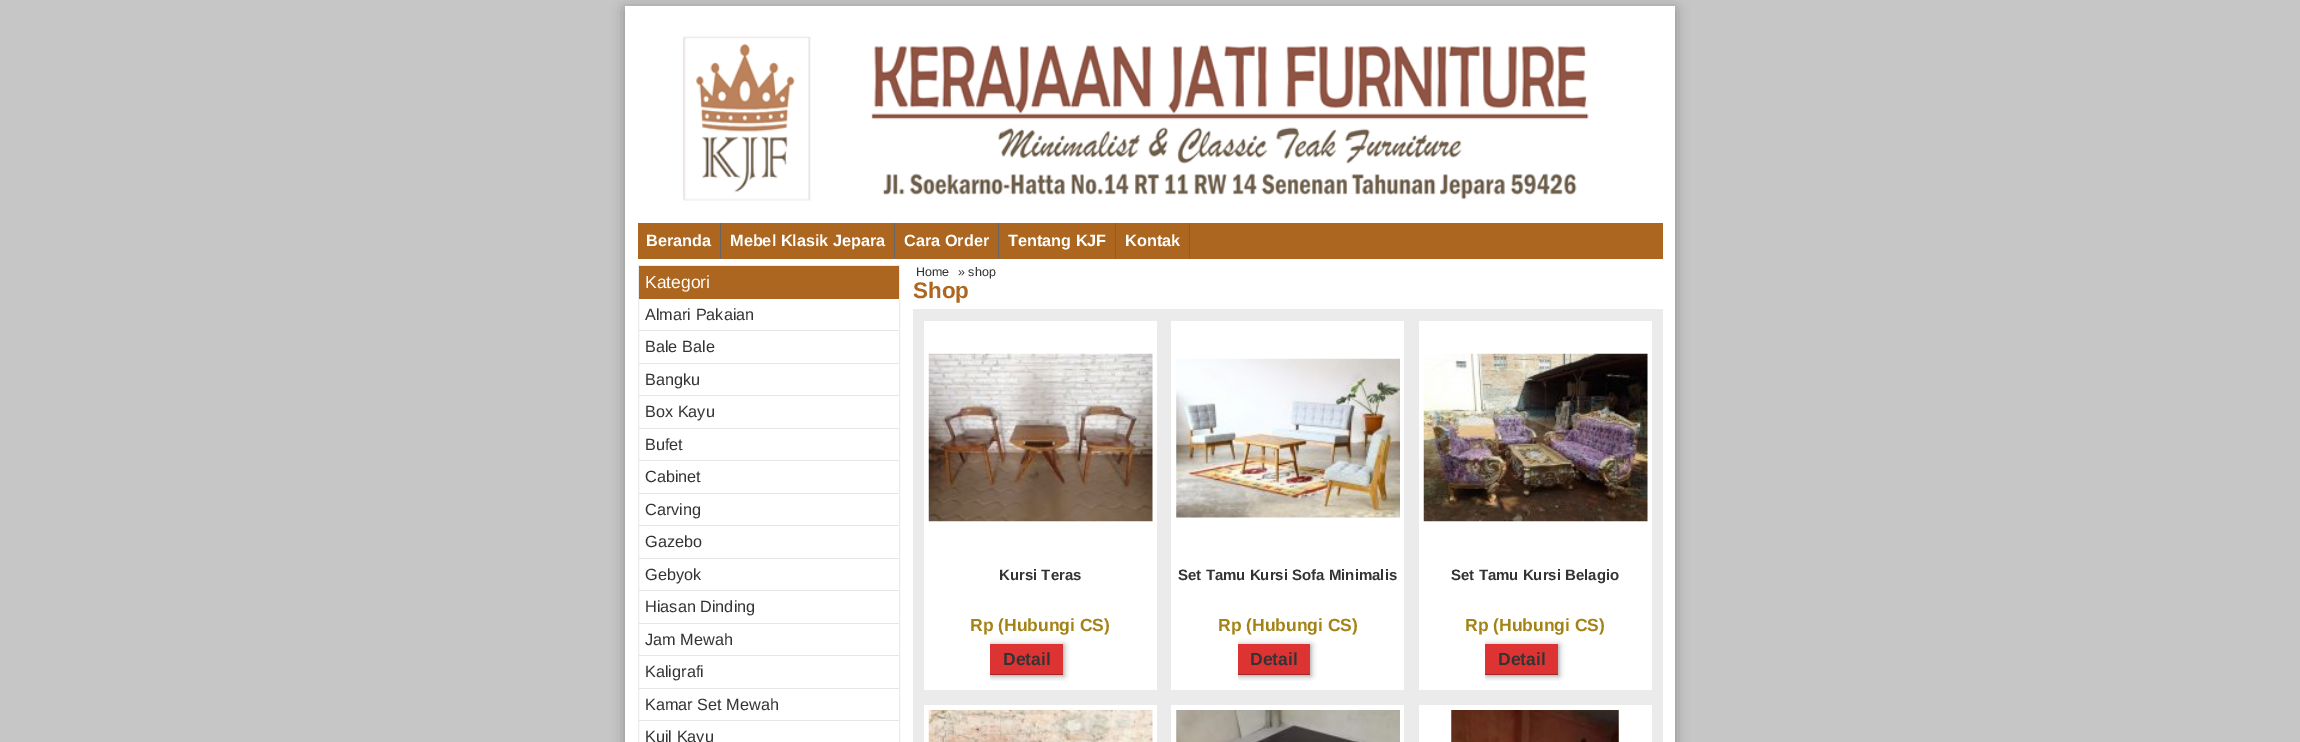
%!PS
<< /PageSize [2300 742] /PageUsesTransparency true >> setpagedevice
/q/gsave load def
/Q_/grestore load def
/C { dup -16 bitshift 255 div exch dup -8 bitshift 255 and 255 div exch 255 and 255 div setrgbcolor } def
/F { [ exch dup neg 0 0 3 -1 roll 0 0 ] selectfont } def
/T { moveto show } def
/R { rectfill } def
/A { dup .setfillconstantalpha .setstrokeconstantalpha } def
/Q { 5 dict begin { /r /h /w /y /x } { exch def } forall
  x r add y moveto x w add y 2 copy h add r arct x w add y h add x 1 index r arct
  x y h add x y r arct x y 2 copy exch w add exch r arct closepath end } def
/S { 12 dict begin { /a /b /q /h /w /y /x } { exch def } forall gsave /was 0 def
  9 -2 -9 { dup b mul 4 div /e exch def 1 sub .425 mul 2.718 exch exp 1 add a .99 .min exch div /now exch def
    1 1 now sub 1 was sub div sub A /was now def
    w h .min e 2 mul add 0 gt { x e sub y e sub w e 2 mul add h e 2 mul add
      q e add b .6 mul add w h .min 2 div e add .min 0 .max Q fill } if } for grestore end } def
/I { 5 dict begin { /h /w /y /x /name } { exch def } forall
  gsave x y translate w h scale
  w h 8 [w 0 0 h 0 0] name (r) file false 3 colorimage grestore end } def
0 .pushpdf14devicefilter
0 742 translate 1 -1 scale
4 setmiterlimit
16#C6C6C6 C
0 0 2300 742 R
16#323232 C
625 9 1050 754 0 7 .4 S
16#FFFFFF C
625 6 1050 736 R
(1.rgb) 683 36 906 165 I
16#AD661F C
638 223 1025 36 R
16#666666 C
720 223 1 36 R
/LiberationSans-Bold 16.25 F
16#FFFFFF C
(Beranda) 646 246 T
16#666666 C
894 223 1 36 R
16#FFFFFF C
(Mebel Klasik Jepara) 730 246 T
16#666666 C
998 223 1 36 R
16#FFFFFF C
(Cara Order) 904 246 T
16#666666 C
1115 223 1 36 R
16#FFFFFF C
(Tentang KJF) 1008 246 T
16#666666 C
1189 223 1 36 R
16#FFFFFF C
(Kontak) 1125 246 T
16#EBEBEB C
638.5 265.5 261 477 rectstroke
16#AD661F C
639 266 260 33 R
/LiberationSans-Regular 17.5 F
16#FFFFFF C
(Kategori) 645 288 T
16#E6E6E6 C
639 330 260 1 R
/LiberationSans-Regular 16.25 F
16#333333 C
(Almari Pakaian) 645 320 T
16#E6E6E6 C
639 363 260 1 R
16#333333 C
(Bale Bale) 645 352 T
16#E6E6E6 C
639 395 260 1 R
16#333333 C
(Bangku) 645 385 T
16#E6E6E6 C
639 428 260 1 R
16#333333 C
(Box Kayu) 645 417 T
16#E6E6E6 C
639 460 260 1 R
16#333333 C
(Bufet) 645 450 T
16#E6E6E6 C
639 493 260 1 R
16#333333 C
(Cabinet) 645 482 T
16#E6E6E6 C
639 525 260 1 R
16#333333 C
(Carving) 645 515 T
16#E6E6E6 C
639 558 260 1 R
16#333333 C
(Gazebo) 645 547 T
16#E6E6E6 C
639 590 260 1 R
16#333333 C
(Gebyok) 645 580 T
16#E6E6E6 C
639 623 260 1 R
16#333333 C
(Hiasan Dinding) 645 612 T
16#E6E6E6 C
639 655 260 1 R
16#333333 C
(Jam Mewah) 645 645 T
16#E6E6E6 C
639 688 260 1 R
16#333333 C
(Kaligrafi) 645 677 T
16#E6E6E6 C
639 720 260 1 R
16#333333 C
(Kamar Set Mewah) 645 710 T
(Kuil Kayu) 645 742 T
/LiberationSans-Regular 12.5 F
(Home) 916 276 T
(» shop) 958 276 T
/LiberationSans-Bold 22.5 F
16#AD661F C
(Shop) 913 298 T
16#EBEBEB C
913 309 750 433 R
16#FFFFFF C
924 321 233 369 R
(2.rgb) 928 353 225 169 I
/LiberationSans-Bold 15 F
16#333333 C
(Kursi Teras) 999 580 T
/LiberationSans-Bold 17.5 F
16#A38216 C
(Rp \(Hubungi CS\)) 970 631 T
q
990 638 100 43 rectclip
16#999999 C
991 645 73 31 0 3 1 S
Q_
16#DD3333 C
990 644 73 30 R
16#A62626 C
990 674 73 1 R
16#333333 C
(Detail) 1003 665 T
16#FFFFFF C
1171 321 233 369 R
(3.rgb) 1176 358 224 160 I
/LiberationSans-Bold 15 F
16#333333 C
(Set Tamu Kursi Sofa Minimalis) 1178 580 T
/LiberationSans-Bold 17.5 F
16#A38216 C
(Rp \(Hubungi CS\)) 1218 631 T
q
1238 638 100 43 rectclip
16#999999 C
1239 645 72 31 0 3 1 S
Q_
16#DD3333 C
1238 644 72 30 R
16#A62626 C
1238 674 72 1 R
16#333333 C
(Detail) 1250 665 T
16#FFFFFF C
1419 321 233 369 R
(4.rgb) 1423 353 225 169 I
/LiberationSans-Bold 15 F
16#333333 C
(Set Tamu Kursi Belagio) 1451 580 T
/LiberationSans-Bold 17.5 F
16#A38216 C
(Rp \(Hubungi CS\)) 1465 631 T
q
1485 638 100 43 rectclip
16#999999 C
1486 645 73 31 0 3 1 S
Q_
16#DD3333 C
1485 644 73 30 R
16#A62626 C
1485 674 73 1 R
16#333333 C
(Detail) 1498 665 T
16#FFFFFF C
924 705 233 37 R
(5.rgb) 928 710 225 32 I
1171 705 233 37 R
(6.rgb) 1176 710 224 32 I
1419 705 233 37 R
(7.rgb) 1451 710 168 32 I
.poppdf14devicefilter showpage
